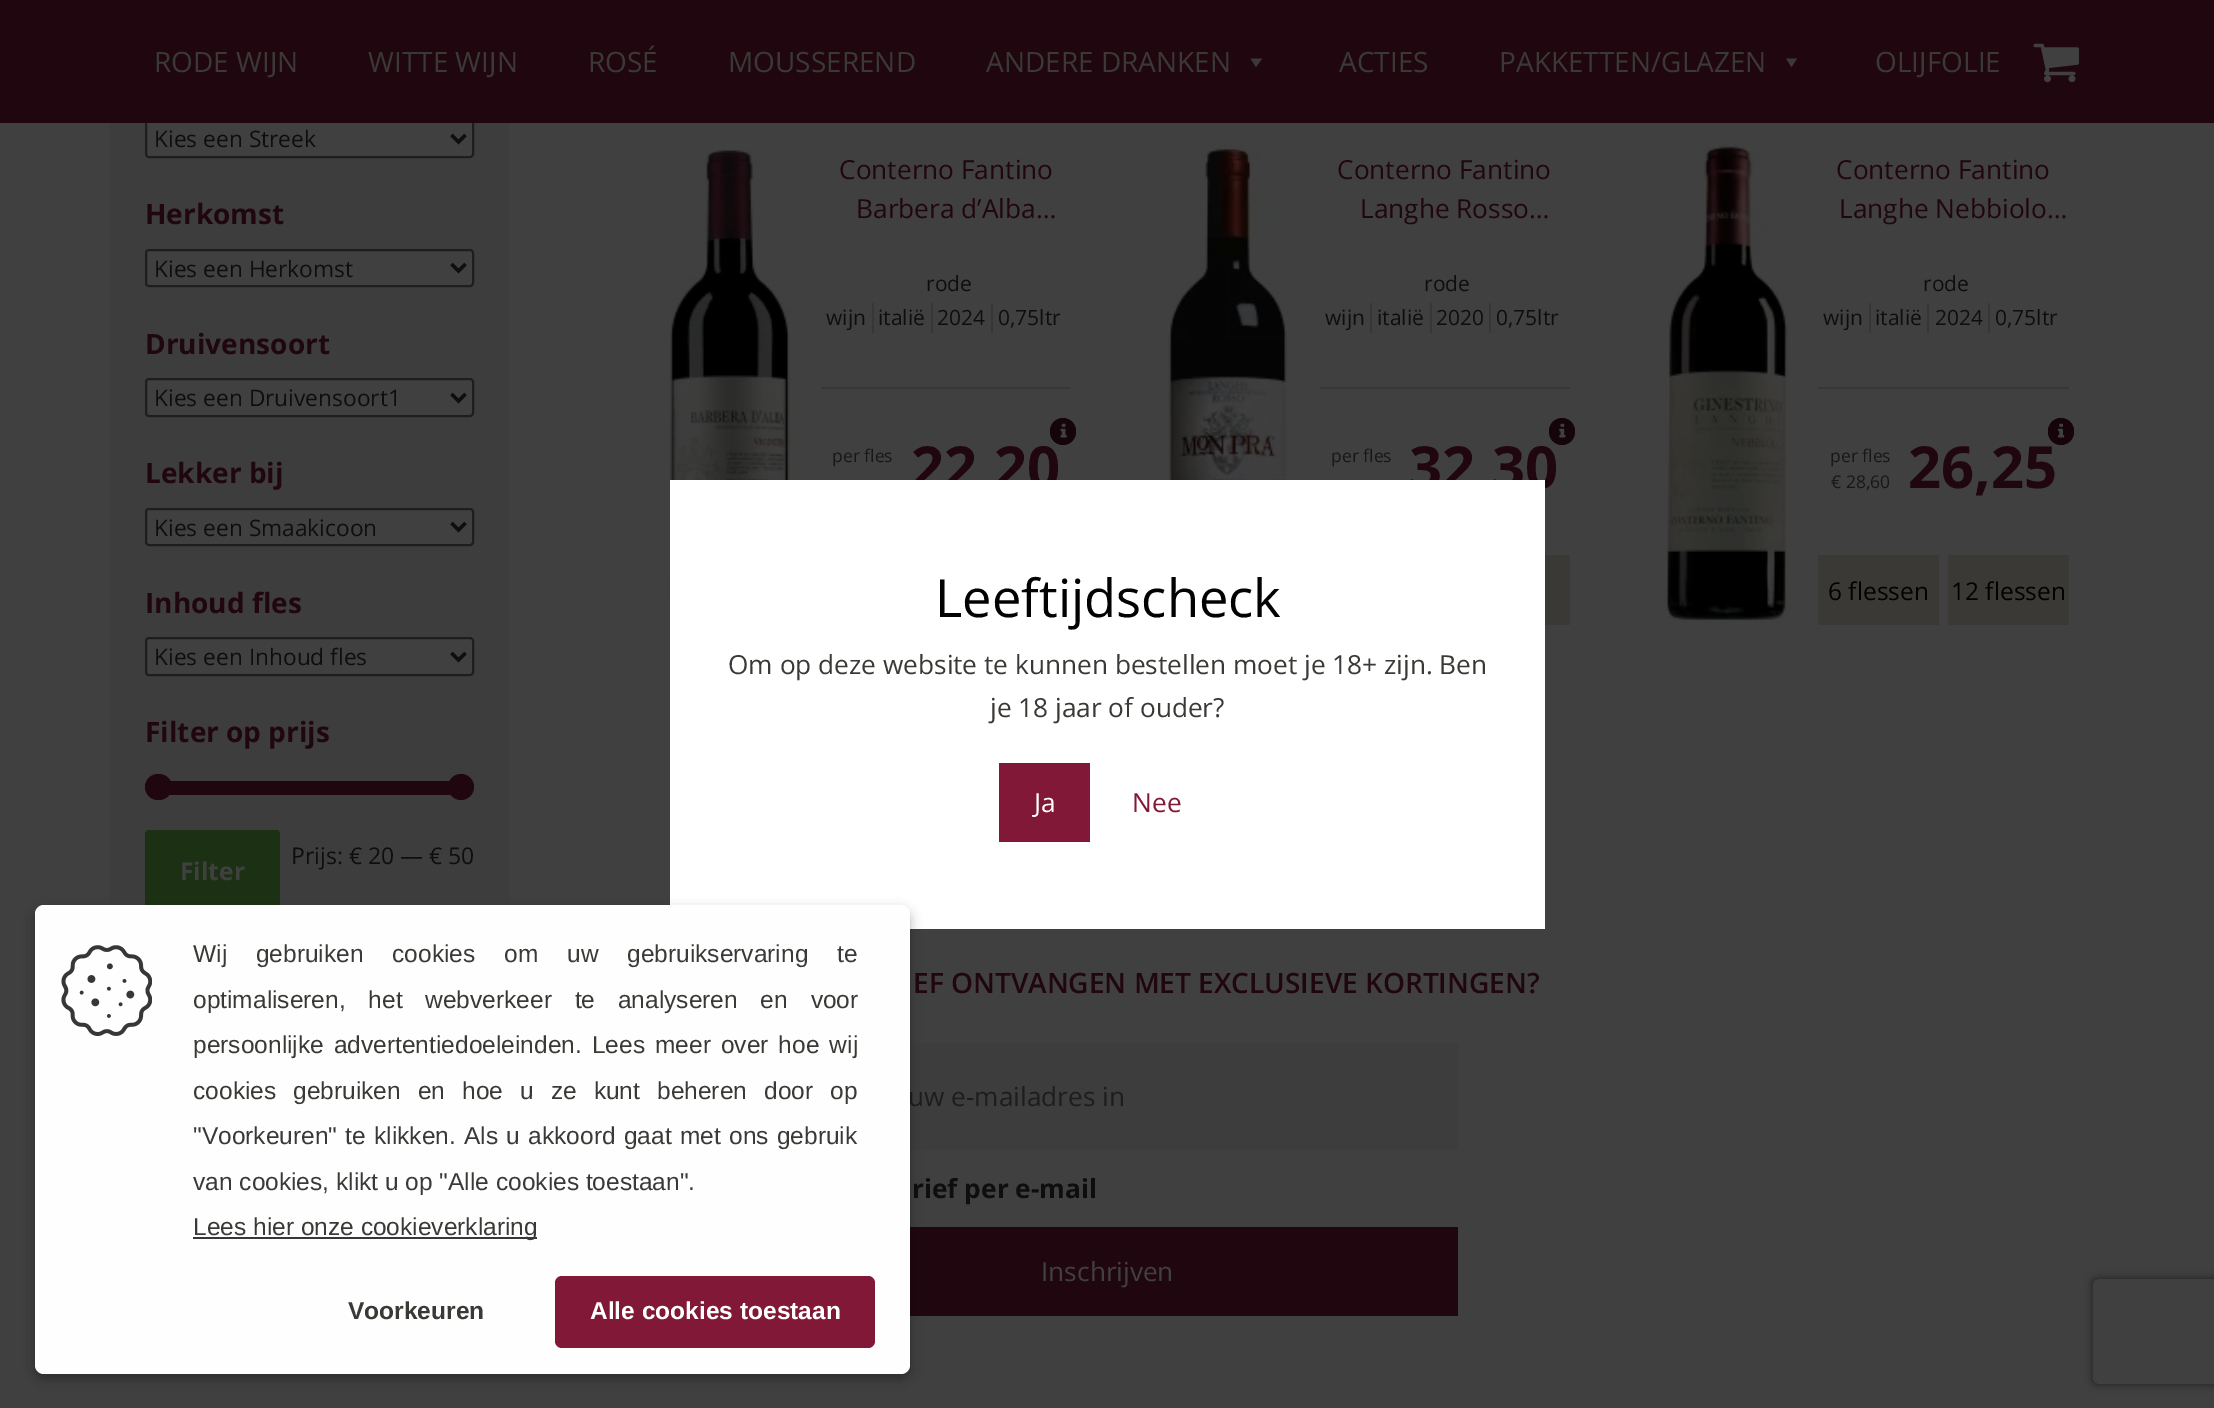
%!PS
<< /PageSize [2214 1408] /PageUsesTransparency true >> setpagedevice
/m/moveto load def
/l/rlineto load def
/c/rcurveto load def
/z/closepath load def
/f/fill load def
/s/stroke load def
/q/gsave load def
/Q_/grestore load def
/w/setlinewidth load def
/C { dup -16 bitshift 255 div exch dup -8 bitshift 255 and 255 div exch 255 and 255 div setrgbcolor } def
/F { [ exch dup neg 0 0 3 -1 roll 0 0 ] selectfont } def
/T { moveto show } def
/R { rectfill } def
/A { dup .setfillconstantalpha .setstrokeconstantalpha } def
/O { newpath 0 360 arc closepath } def
/Q { 5 dict begin { /r /h /w /y /x } { exch def } forall
  x r add y moveto x w add y 2 copy h add r arct x w add y h add x 1 index r arct
  x y h add x y r arct x y 2 copy exch w add exch r arct closepath end } def
/S { 12 dict begin { /a /b /q /h /w /y /x } { exch def } forall gsave /was 0 def
  9 -2 -9 { dup b mul 4 div /e exch def 1 sub .425 mul 2.718 exch exp 1 add a .99 .min exch div /now exch def
    1 1 now sub 1 was sub div sub A /was now def
    w h .min e 2 mul add 0 gt { x e sub y e sub w e 2 mul add h e 2 mul add
      q e add b .6 mul add w h .min 2 div e add .min 0 .max Q fill } if } for grestore end } def
/I { 5 dict begin { /h /w /y /x /name } { exch def } forall
  gsave x y translate w h scale
  w h 8 [w 0 0 h 0 0] name (r) file false 3 colorimage grestore end } def
0 .pushpdf14devicefilter
0 1408 translate 1 -1 scale
4 setmiterlimit
16#404040 C
0 0 2214 1408 R
16#3D3D3D C
110 123 399 782 R
16#404040 C
146 120 327 37 3 Q q f Q_
16#1E1E1E C
2 w
s
16#20060E C
0 0 2214 123 R
/OpenSans-Regular 28 F
16#3A3936 C
(RODE WIJN) 154 72 T
(WITTE WIJN) 368 72 T
(ROSÉ) 588 72 T
(MOUSSEREND) 728 72 T
(ANDERE DRANKEN) 986 72 T
1262 58.5 m -6 8.5 l -5.5 -8.5 l z f
(ACTIES) 1339 72 T
(PAKKETTEN/GLAZEN) 1499 72 T
1797 58.5 m -5.5 8.5 l -5.5 -8.5 l z f
(OLIJFOLIE) 1875 72 T
(1.rgb) 2033 43 46 40 I
16#0E0E0E C
3.5 w
451.5 135 m 7 7 l 7 -7 l s
/OpenSans-Regular 22.75 F
(Kies een Streek) 154 147 T
/OpenSans-Bold 28 F
16#20060E C
(Herkomst) 145 224 T
16#404040 C
146 250 327 36 3 Q q f Q_
16#1E1E1E C
2 w
s
16#0E0E0E C
3.5 w
451.5 264 m 7 7 l 7 -7 l s
/OpenSans-Regular 22.75 F
(Kies een Herkomst) 154 277 T
/OpenSans-Bold 28 F
16#20060E C
(Druivensoort) 145 354 T
16#404040 C
146 379 327 37 3 Q q f Q_
16#1E1E1E C
2 w
s
16#0E0E0E C
3.5 w
451.5 394 m 7 7 l 7 -7 l s
/OpenSans-Regular 22.75 F
(Kies een Druivensoort1) 154 406 T
/OpenSans-Bold 28 F
16#20060E C
(Lekker bij) 145 483 T
16#404040 C
146 509 327 36 3 Q q f Q_
16#1E1E1E C
2 w
s
16#0E0E0E C
3.5 w
451.5 523 m 7 7 l 7 -7 l s
/OpenSans-Regular 22.75 F
(Kies een Smaakicoon) 154 536 T
/OpenSans-Bold 28 F
16#20060E C
(Inhoud fles) 145 613 T
16#404040 C
146 638 327 37 3 Q q f Q_
16#1E1E1E C
2 w
s
16#0E0E0E C
3.5 w
451.5 653 m 7 7 l 7 -7 l s
/OpenSans-Regular 22.75 F
(Kies een Inhoud fles) 154 665 T
/OpenSans-Bold 28 F
16#20060E C
(Filter op prijs) 145 742 T
169 781 282 14 R
145 774 27 26 13 Q f
461 787 13 O f
16#1C3113 C
145 830 135 87 4 Q f
/OpenSans-Bold 24.5 F
16#404040 C
(Filter) 180 880 T
/OpenSans-Regular 23 F
16#0E0E0E C
(Prijs: € 20 — € 50) 291 864 T
(2.rgb) 669 150 125 475 I
/OpenSans-Regular 26.25 F
16#20060E C
(Conterno Fantino) 839 179 T
(Barbera d’Alba…) 856 218 T
/OpenSans-Regular 21 F
16#0E0E0E C
(rode) 926 291 T
(wijn) 826 325 T
16#373737 C
872 303 2 30 R
16#0E0E0E C
(italië) 878 325 T
16#373737 C
931 303 2 30 R
16#0E0E0E C
(2024) 937 325 T
16#373737 C
991 303 2 30 R
16#0E0E0E C
(0,75ltr) 998 325 T
16#373737 C
821 387 250 2 R
/OpenSans-Regular 17.5 F
16#171717 C
(per fles) 832 462 T
16#150409 C
1050 418 26 27 13 Q f
(3.rgb) 1060 423 7 15 I
/OpenSans-Bold 58 F
16#20060E C
(22,20) 911 488 T
(4.rgb) 1168 143 120 337 I
/OpenSans-Regular 26.25 F
(Conterno Fantino) 1337 179 T
(Langhe Rosso…) 1360 218 T
/OpenSans-Regular 21 F
16#0E0E0E C
(rode) 1424 291 T
(wijn) 1325 325 T
16#373737 C
1370 303 2 30 R
16#0E0E0E C
(italië) 1377 325 T
16#373737 C
1430 303 2 30 R
16#0E0E0E C
(2020) 1436 325 T
16#373737 C
1489 303 2 30 R
16#0E0E0E C
(0,75ltr) 1496 325 T
16#373737 C
1320 387 250 2 R
/OpenSans-Regular 17.5 F
16#171717 C
(per fles) 1331 462 T
16#150409 C
1549 418 26 27 13 Q f
(5.rgb) 1559 423 7 15 I
/OpenSans-Bold 58 F
16#20060E C
(32,30) 1409 488 T
16#3A3936 C
1545 555 25 70 R
(6.rgb) 1665 143 124 482 I
/OpenSans-Regular 26.25 F
16#20060E C
(Conterno Fantino) 1836 179 T
(Langhe Nebbiolo…) 1839 218 T
/OpenSans-Regular 21 F
16#0E0E0E C
(rode) 1923 291 T
(wijn) 1823 325 T
16#373737 C
1869 303 2 30 R
16#0E0E0E C
(italië) 1875 325 T
16#373737 C
1927 303 2 30 R
16#0E0E0E C
(2024) 1935 325 T
16#373737 C
1988 303 2 30 R
16#0E0E0E C
(0,75ltr) 1995 325 T
16#373737 C
1818 387 251 2 R
/OpenSans-Regular 17.5 F
16#171717 C
(per fles) 1830 462 T
(€ 28,60) 1831 488 T
16#150409 C
2048 418 26 27 13 Q f
(7.rgb) 2058 423 7 15 I
/OpenSans-Bold 58 F
16#20060E C
(26,25) 1908 488 T
16#3A3936 C
1818 555 121 70 R
/OpenSans-Regular 24.5 F
16#020202 C
(6 flessen) 1828 600 T
16#3A3936 C
1948 555 121 70 R
16#020202 C
(12 flessen) 1951 600 T
/OpenSans-SemiBold 28 F
16#20060E C
(EF ONTVANGEN MET EXCLUSIEVE KORTINGEN?) 913 993 T
16#3D3D3D C
910 1043 548 107 R
/OpenSans-Regular 26.25 F
16#1D1D1D C
(uw e-mailadres in) 908 1106 T
/OpenSans-Bold 26.25 F
16#0E0E0E C
(rief per e-mail) 912 1198 T
16#20060E C
910 1227 548 89 R
/OpenSans-Regular 26.25 F
16#404040 C
(Inschrijven) 1041 1281 T
16#FFFFFF C
670 480 875 449 R
/OpenSans-Regular 52.5 F
16#020202 C
(Leeftijdscheck) 935 617 T
/OpenSans-Regular 26.25 F
16#3A3936 C
(Om op deze website te kunnen bestellen moet je 18+ zijn. Ben) 728 674 T
(je 18 jaar of ouder?) 990 717 T
16#811837 C
999 763 91 79 R
16#FFFFFF C
(Ja) 1034 812 T
16#811837 C
(Nee) 1132 812 T
16#000000 C
35 910 875 469 9 6 .3 S
16#FEFEFE C
35 905 875 469 9 Q f
(8.rgb) 61 945 91 91 I
/LiberationSans-Regular 24.5 F
16#3A3936 C
193 962 m 22 0 32 (Wij gebruiken cookies om uw gebruikservaring te) widthshow
193 1008 m 16 0 32 (optimaliseren, het webverkeer te analyseren en voor) widthshow
193 1053 m 3.25 0 32 (persoonlijke advertentiedoeleinden. Lees meer over hoe wij) widthshow
193 1099 m 10.25 0 32 (cookies gebruiken en hoe u ze kunt beheren door op) widthshow
193 1144 m 1.5 0 32 ("Voorkeuren" te klikken. Als u akkoord gaat met ons gebruik) widthshow
(van cookies, klikt u op "Alle cookies toestaan".) 193 1190 T
16#373737 C
193 1237 344 2 R
16#3A3936 C
(Lees hier onze cookieverklaring) 193 1235 T
/LiberationSans-Bold 24.5 F
(Voorkeuren) 348 1319 T
16#811837 C
555 1276 320 72 7 Q f
16#FFFFFF C
(Alle cookies toestaan) 590 1319 T
q
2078 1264 m 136 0 l 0 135 l -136 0 l z 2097 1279 m 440 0 l 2 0 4 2 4 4 c 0 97 l 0 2 -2 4 -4 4 c -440 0 l -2 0 -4 -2 -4 -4 c 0 -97 l 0 -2 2 -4 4 -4 c z eoclip newpath
16#202020 C
2093 1279 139 105 4 4.5 1 S
Q_
.poppdf14devicefilter showpage
